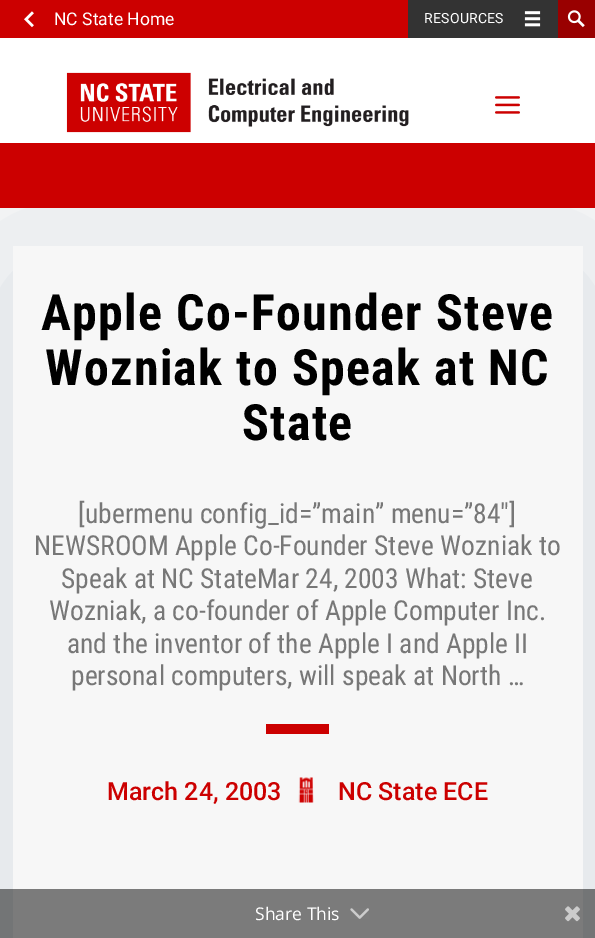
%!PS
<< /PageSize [595 938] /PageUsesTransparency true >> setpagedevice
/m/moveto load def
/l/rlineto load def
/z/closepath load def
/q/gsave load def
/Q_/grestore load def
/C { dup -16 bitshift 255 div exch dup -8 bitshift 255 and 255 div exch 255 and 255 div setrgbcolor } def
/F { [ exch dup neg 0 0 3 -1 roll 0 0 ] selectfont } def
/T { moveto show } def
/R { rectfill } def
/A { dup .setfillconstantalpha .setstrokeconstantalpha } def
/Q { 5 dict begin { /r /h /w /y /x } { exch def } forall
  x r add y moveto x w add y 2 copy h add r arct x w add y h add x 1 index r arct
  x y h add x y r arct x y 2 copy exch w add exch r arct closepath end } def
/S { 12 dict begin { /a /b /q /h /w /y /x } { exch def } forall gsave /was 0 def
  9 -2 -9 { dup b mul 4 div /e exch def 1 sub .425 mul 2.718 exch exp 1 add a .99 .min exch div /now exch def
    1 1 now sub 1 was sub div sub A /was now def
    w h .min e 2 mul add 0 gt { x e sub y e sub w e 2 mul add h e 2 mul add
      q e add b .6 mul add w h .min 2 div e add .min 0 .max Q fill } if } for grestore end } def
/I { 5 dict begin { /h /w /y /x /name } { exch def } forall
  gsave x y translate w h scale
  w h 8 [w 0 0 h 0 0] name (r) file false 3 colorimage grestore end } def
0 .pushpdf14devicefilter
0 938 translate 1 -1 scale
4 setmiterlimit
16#F7F7F7 C
0 0 595 938 R
q
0 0 m 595 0 l 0 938 l -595 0 l z 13 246 m 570 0 l 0 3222 l -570 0 l z eoclip newpath
16#D6DEE4 C
13 271 570 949 0 94 1 S
Q_
16#CC0000 C
0 0 408 38 R
(1.rgb) 24 11 10 17 I
/Roboto-Regular 17.5 F
16#FFFFFF C
(NC State Home) 54 25 T
16#333333 C
408 0 150 38 R
(2.rgb) 524 11 17 16 I
/Roboto-Regular 14 F
16#FFFFFF C
424 23 m .25 0 (RESOURCES) ashow
16#990000 C
558 0 37 38 R
(3.rgb) 567 10 18 18 I
16#FFFFFF C
0 38 595 105 R
(4.rgb) 66 72 343 61 I
(5.rgb) 495 96 25 18 I
16#CC0000 C
0 143 595 65 R
/RobotoCondensed-Bold 50 F
16#000000 C
41 330 m 1.25 0 (Apple Co-Founder Steve) ashow
45 385 m 1.25 0 (Wozniak to Speak at NC) ashow
242 440 m 1.25 0 (State) ashow
/RobotoCondensed-Regular 27.5 F
16#777777 C
([ubermenu config_id=”main” menu=”84″]) 78 523 T
(NEWSROOM Apple Co-Founder Steve Wozniak to) 34 555 T
(Speak at NC StateMar 24, 2003 What: Steve) 61 588 T
(Wozniak, a co-founder of Apple Computer Inc.) 49 620 T
(and the inventor of the Apple I and Apple II) 67 653 T
(personal computers, will speak at North …) 71 685 T
16#CC0000 C
266 724 63 10 R
/Roboto-Medium 25 F
(March 24, 2003) 107 800 T
(6.rgb) 298 777 16 26 I
(NC State ECE) 338 800 T
0.5 A
16#000000 C
0 889 595 49 R
/OpenSans-Regular 17.5 F
1 A
16#FFFFFF C
(Share This) 255 920 T
(7.rgb) 350 908 19 11 I
(8.rgb) 565 906 15 16 I
.poppdf14devicefilter showpage
